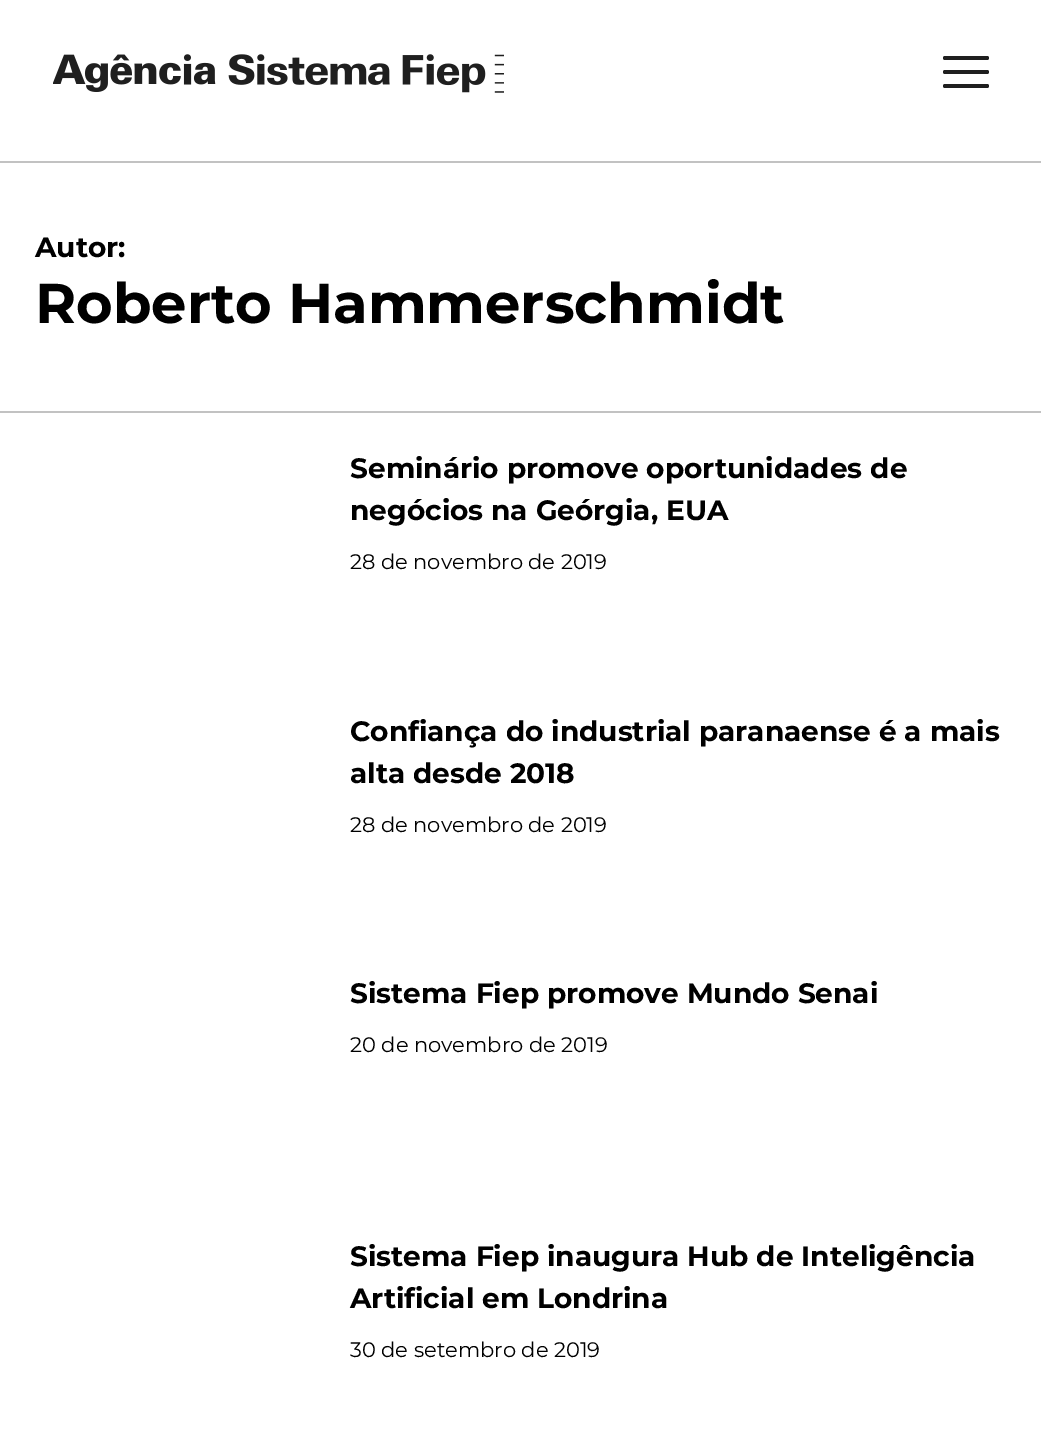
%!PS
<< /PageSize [1041 1448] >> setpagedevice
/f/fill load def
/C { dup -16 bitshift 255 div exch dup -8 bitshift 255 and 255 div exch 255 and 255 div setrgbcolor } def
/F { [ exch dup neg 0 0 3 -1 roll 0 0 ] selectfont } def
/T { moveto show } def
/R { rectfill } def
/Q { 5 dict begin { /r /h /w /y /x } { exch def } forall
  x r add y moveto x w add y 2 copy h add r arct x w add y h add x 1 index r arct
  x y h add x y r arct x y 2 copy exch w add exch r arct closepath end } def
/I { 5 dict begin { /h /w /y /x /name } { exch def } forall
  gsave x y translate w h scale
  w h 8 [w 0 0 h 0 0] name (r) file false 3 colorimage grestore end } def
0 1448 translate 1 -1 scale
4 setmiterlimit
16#FFFFFF C
0 0 1041 1448 R
16#C2C2C2 C
0 161 1041 2 R
(1.rgb) 53 54 451 39 I
16#1F1F1F C
943 56 46 4 2 Q f
943 70 46 4 2 Q f
943 84 46 4 2 Q f
16#C2C2C2 C
0 411 1041 2 R
/Montserrat-Bold 28 F
16#000000 C
(Autor:) 35 257 T
/Montserrat-Bold 56 F
(Roberto Hammerschmidt) 35 323 T
/Montserrat-Bold 28 F
(Seminário promove oportunidades de) 350 478 T
(negócios na Geórgia, EUA) 350 520 T
/Montserrat-Regular 21 F
(28 de novembro de 2019) 350 569 T
/Montserrat-Bold 28 F
(Confiança do industrial paranaense é a mais) 350 741 T
(alta desde 2018) 350 783 T
/Montserrat-Regular 21 F
(28 de novembro de 2019) 350 832 T
/Montserrat-Bold 28 F
(Sistema Fiep promove Mundo Senai) 350 1003 T
/Montserrat-Regular 21 F
(20 de novembro de 2019) 350 1052 T
/Montserrat-Bold 28 F
(Sistema Fiep inaugura Hub de Inteligência) 350 1266 T
(Artificial em Londrina) 350 1308 T
/Montserrat-Regular 21 F
(30 de setembro de 2019) 350 1357 T
showpage
